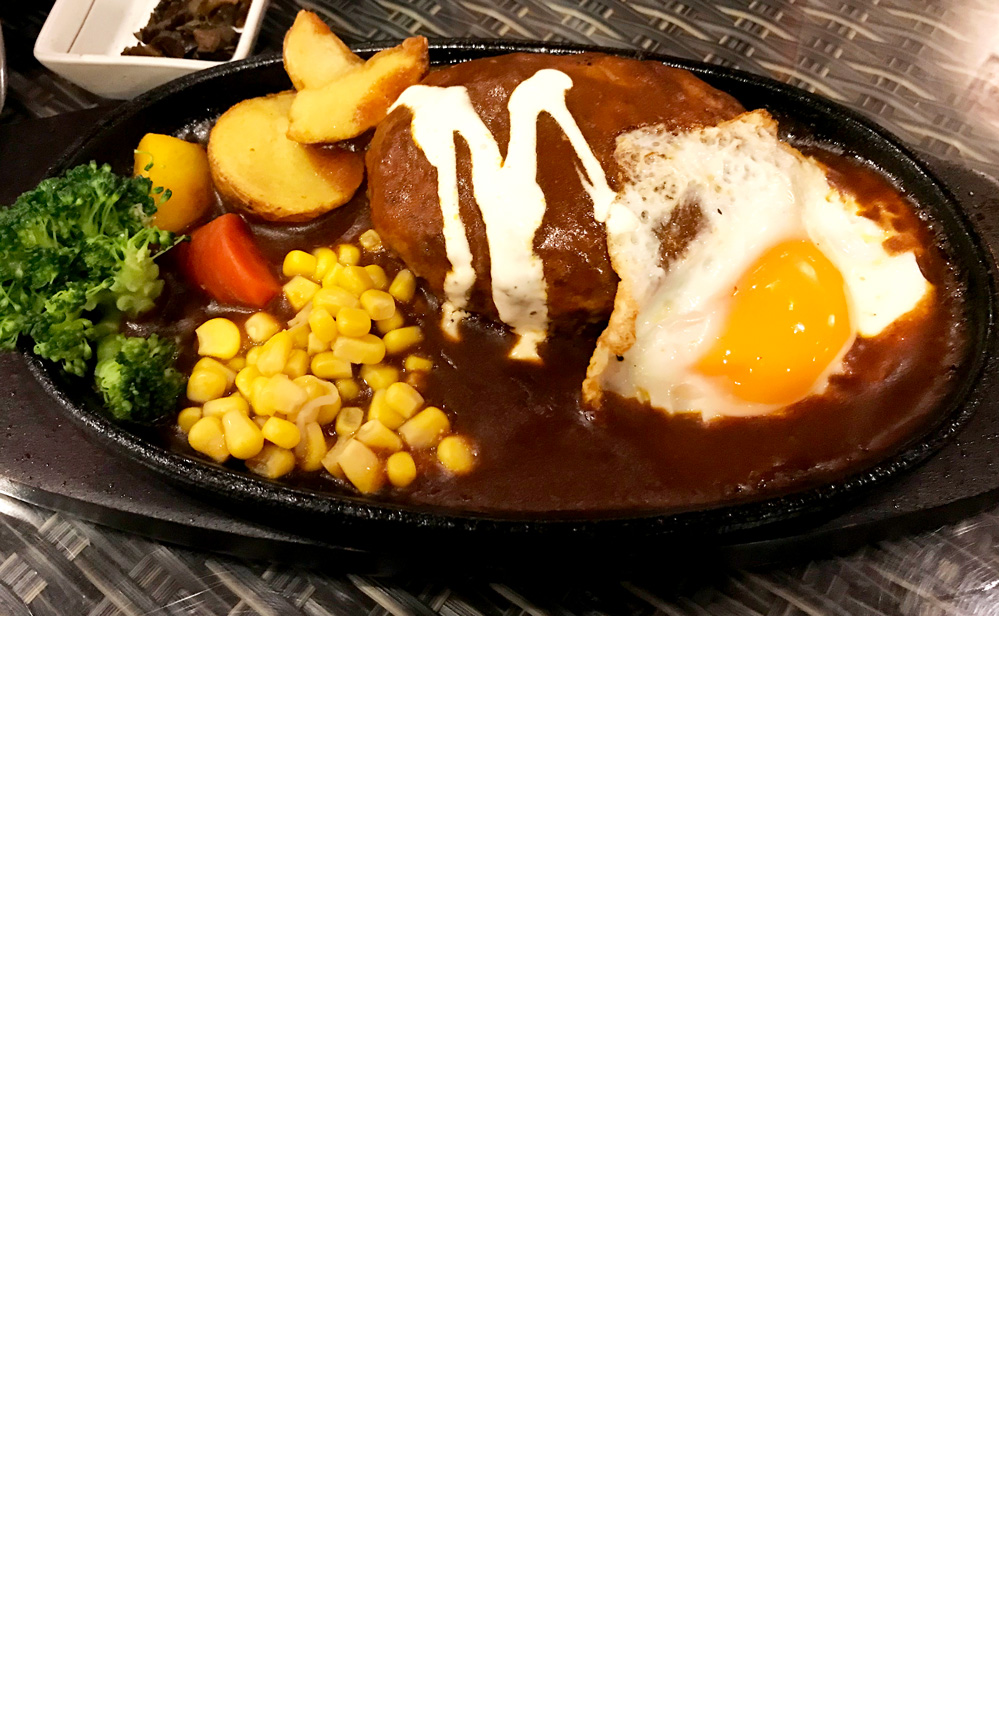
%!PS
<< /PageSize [999 1717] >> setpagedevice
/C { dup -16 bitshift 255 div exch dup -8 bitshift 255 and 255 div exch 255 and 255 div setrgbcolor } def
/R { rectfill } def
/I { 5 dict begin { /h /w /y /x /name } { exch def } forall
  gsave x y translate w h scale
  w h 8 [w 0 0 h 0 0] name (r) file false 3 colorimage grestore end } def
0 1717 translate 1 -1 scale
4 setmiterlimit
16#FFFFFF C
0 0 999 1717 R
(1.rgb) 0 0 999 616 I
showpage
